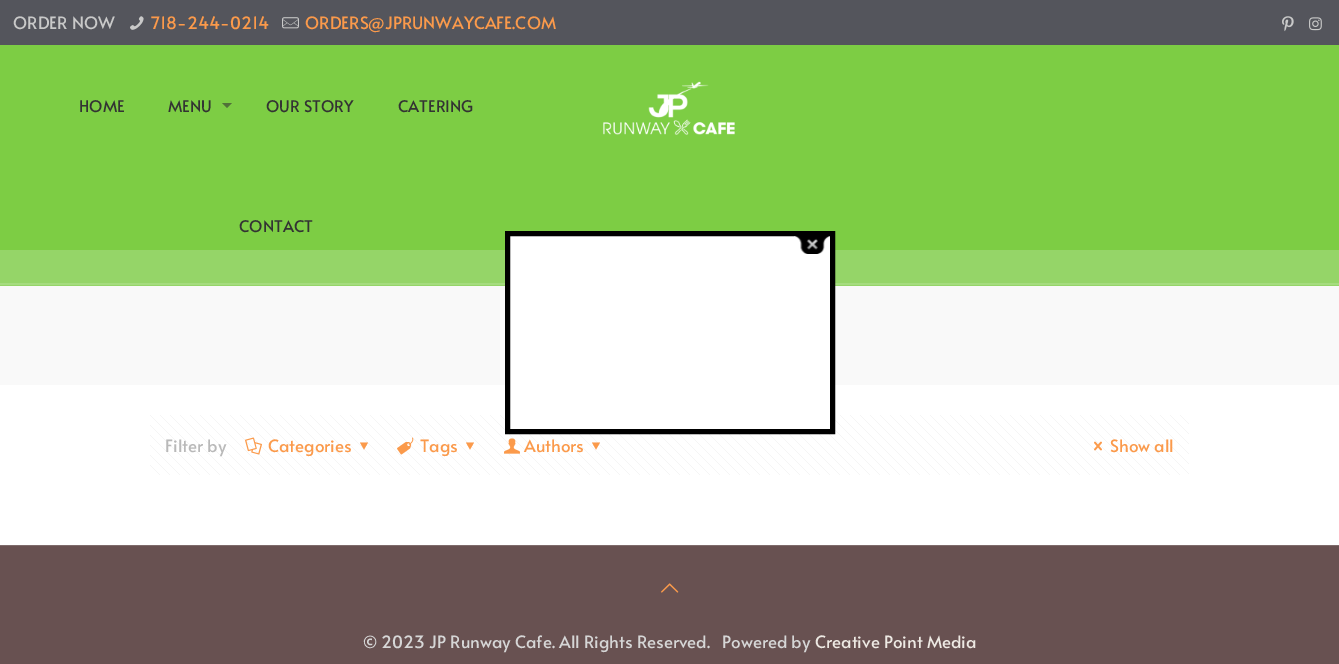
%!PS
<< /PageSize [1339 664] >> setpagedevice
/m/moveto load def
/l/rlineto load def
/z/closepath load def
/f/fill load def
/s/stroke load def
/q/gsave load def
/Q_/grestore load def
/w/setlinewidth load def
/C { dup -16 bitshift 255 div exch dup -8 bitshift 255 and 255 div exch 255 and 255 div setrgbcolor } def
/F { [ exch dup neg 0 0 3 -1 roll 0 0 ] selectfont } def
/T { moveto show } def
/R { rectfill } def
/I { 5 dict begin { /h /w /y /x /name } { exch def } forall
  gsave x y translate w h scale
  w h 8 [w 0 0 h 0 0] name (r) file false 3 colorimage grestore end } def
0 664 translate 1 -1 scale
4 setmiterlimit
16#FFFFFF C
0 0 1339 664 R
16#7DCD44 C
0 45 1339 205 R
16#54555C C
0 0 1339 45 R
/Alata-Regular 17 F
16#C9C9C9 C
(ORDER NOW) 13 29 T
(1.rgb) 130 16 14 14 I
16#FB9A4B C
(718-244-0214) 151 29 T
(2.rgb) 282 17 17 12 I
(ORDERS@JPRUNWAYCAFE.COM) 305 29 T
(3.rgb) 1282 16 12 16 I
(4.rgb) 1309 17 13 14 I
16#95D568 C
0 250 1339 36 R
16#A5DC7F C
0 283 1339 2 R
/Alata-Regular 16 F
16#333333 C
(HOME) 79 112 T
(MENU) 168 112 T
16#517139 C
222 103 m 10 0 l -5 5 l z f
16#333333 C
(OUR STORY) 266 112 T
(CATERING) 398 112 T
(CONTACT) 239 232 T
(5.rgb) 603 81 132 54 I
16#F9F9F9 C
0 286 1339 99 R
(6.rgb) 150 415 1039 60 I
/Alata-Regular 17 F
16#B9B9B9 C
(Filter by) 165 452 T
(7.rgb) 245 437 17 18 I
16#FB9A4B C
(Categories) 268 452 T
368 442.5 m -4 7 l -4 -7 l z f
(8.rgb) 397 437 17 18 I
(Tags) 420 452 T
474 442.5 m -4 7 l -4 -7 l z f
(9.rgb) 504 438 16 16 I
(Authors) 524 452 T
600 442.5 m -4 7 l -4 -7 l z f
(10.rgb) 1094 441 8 10 I
(Show all) 1110 452 T
16#685151 C
0 546 1339 118 R
16#7E6B6B C
0 545 1339 1 R
(11.rgb) 661 583 18 10 I
16#D6D6D6 C
(© 2023 JP Runway Cafe. All Rights Reserved.) 363 648 T
(Powered by) 722 648 T
16#EDE9E3 C
(Creative Point Media) 815 648 T
16#FFFFFF C
507.5 233.5 m 325 0 l 0 198 l -325 0 l z q f Q_
16#000000 C
5 w
s
(12.rgb) 794 236 36 18 I
showpage
